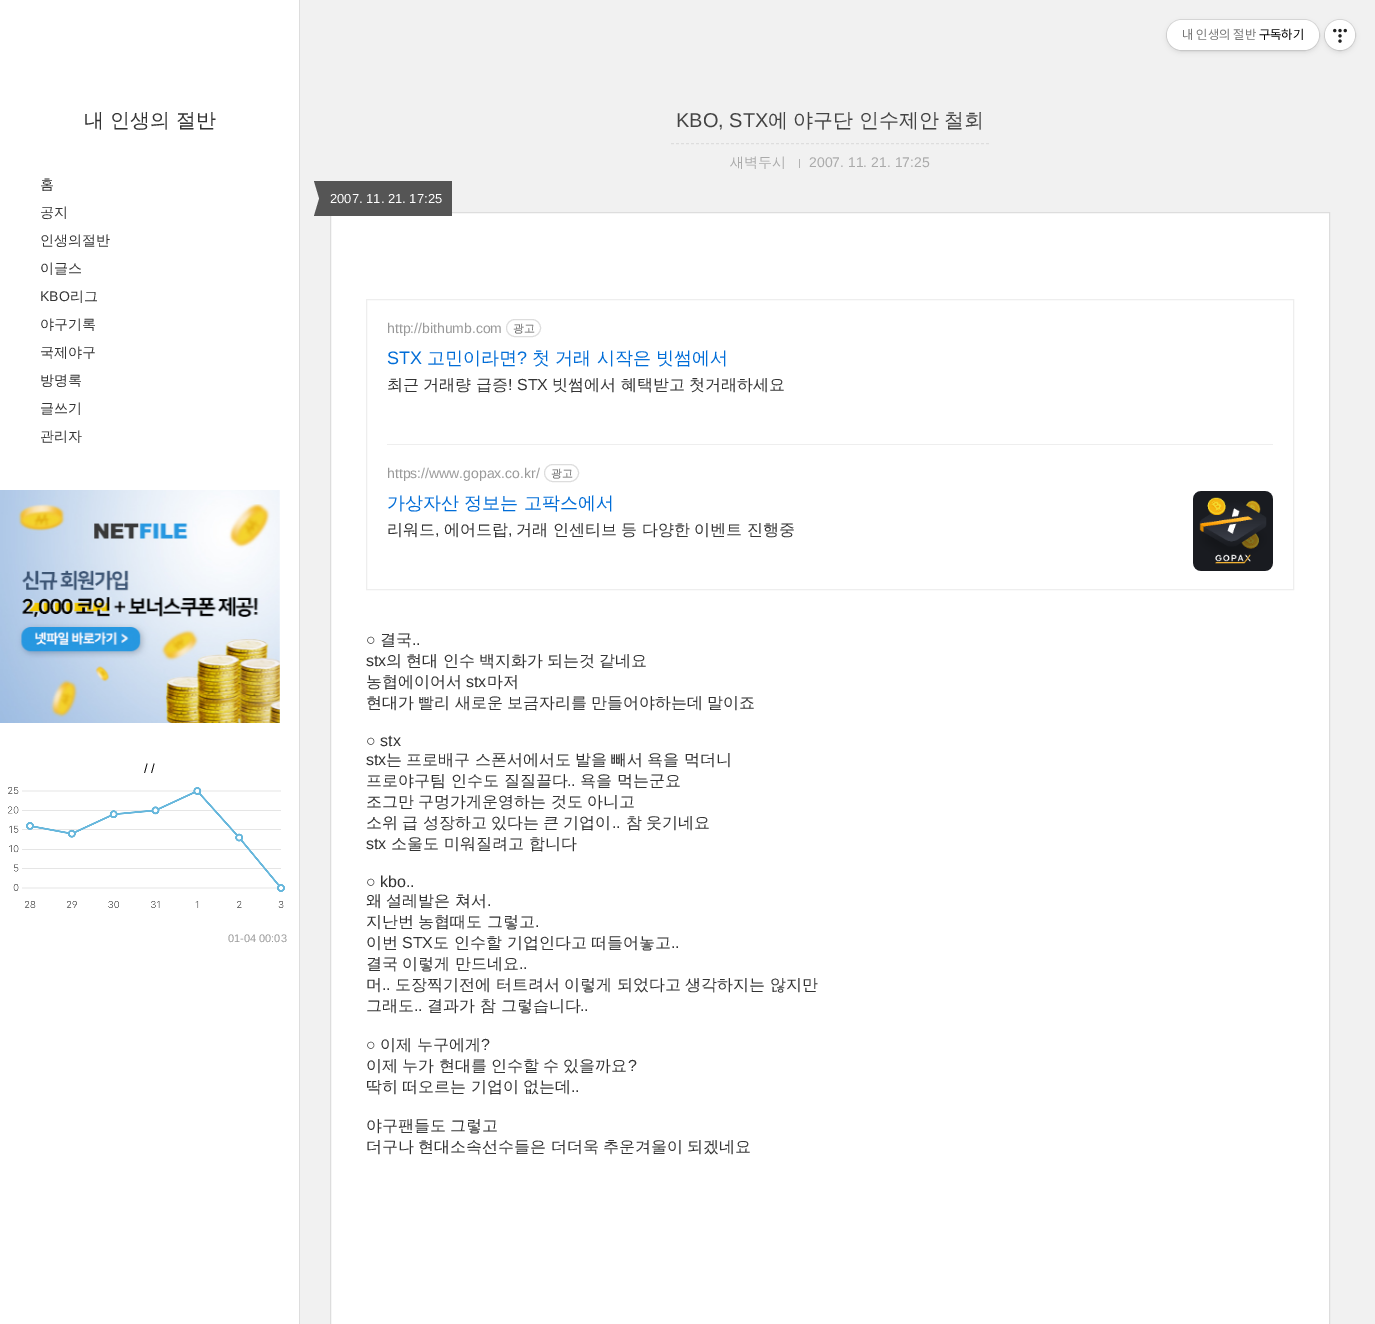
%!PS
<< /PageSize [1375 1324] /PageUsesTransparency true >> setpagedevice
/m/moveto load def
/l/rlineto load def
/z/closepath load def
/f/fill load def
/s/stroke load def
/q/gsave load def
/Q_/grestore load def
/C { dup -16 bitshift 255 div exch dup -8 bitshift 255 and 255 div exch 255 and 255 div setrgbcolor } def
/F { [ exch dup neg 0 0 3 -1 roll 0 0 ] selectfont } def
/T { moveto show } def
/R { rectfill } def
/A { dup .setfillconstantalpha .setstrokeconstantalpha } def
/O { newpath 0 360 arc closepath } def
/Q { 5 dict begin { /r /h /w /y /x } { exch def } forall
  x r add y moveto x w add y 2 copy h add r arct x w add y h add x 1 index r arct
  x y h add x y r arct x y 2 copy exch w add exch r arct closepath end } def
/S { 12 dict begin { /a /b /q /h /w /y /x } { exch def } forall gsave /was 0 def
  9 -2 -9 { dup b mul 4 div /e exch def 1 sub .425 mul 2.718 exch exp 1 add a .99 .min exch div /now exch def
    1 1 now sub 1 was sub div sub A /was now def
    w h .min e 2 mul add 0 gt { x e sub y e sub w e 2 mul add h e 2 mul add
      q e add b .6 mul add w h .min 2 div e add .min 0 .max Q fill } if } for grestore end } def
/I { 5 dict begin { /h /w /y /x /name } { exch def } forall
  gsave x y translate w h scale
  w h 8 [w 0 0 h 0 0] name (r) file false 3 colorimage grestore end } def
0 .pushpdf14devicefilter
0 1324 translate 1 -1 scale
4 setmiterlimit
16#F1F1F1 C
0 0 1375 1324 R
16#000000 C
1325 22 30 30 15 2.5 .1 S
0.1 A
1340 35 15.5 O s
1 A
16#FFFFFF C
1340 35 15 O f
16#000000 C
1167 22 152 30 15 2.5 .1 S
0.1 A
1166.5 19.5 153 31 15.5 Q s
1 A
16#FFFFFF C
1167 20 152 30 15 Q f
/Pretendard-Regular 13 F
16#777777 C
(내 인생의 절반) 1182 39 T
16#000000 C
(구독하기) 1259 39 T
(1.rgb) 1333 28 14 15 I
16#FFFFFF C
0 0 299 1324 R
16#DDDDDD C
299 0 1 1324 R
/WenQuanYiZenHei-Medium 20 F
16#333333 C
(내 인생의 절반) 84 127 T
/WenQuanYiZenHei-Medium 14 F
(홈) 40 189 T
(공지) 40 217 T
(인생의절반) 40 245 T
(이글스) 40 273 T
/LiberationSans-Regular 14 F
(KBO) 40 301 T
/WenQuanYiZenHei-Medium 14 F
(리그) 70 301 T
(야구기록) 40 329 T
(국제야구) 40 357 T
(방명록) 40 385 T
(글쓰기) 40 413 T
(관리자) 40 441 T
(2.rgb) 0 490 280 233 I
/LiberationSans-Regular 13 F
16#000000 C
(/ /) 144 773 T
(3.rgb) 8 787 277 121 I
/LiberationSans-Regular 11 F
16#999999 C
(01-04 00:03) 228 942 T
16#DDDDDD C
[3 2] 0 setdash
671 143.5 m 318 0 l s
/LiberationSans-Regular 20 F
16#444444 C
(KBO, STX) 676 127 T
/WenQuanYiZenHei-Medium 20 F
(에) 768 127 T
(야구단) 793 127 T
(인수제안) 859 127 T
(철회) 944 127 T
/WenQuanYiZenHei-Medium 14 F
16#AAAAAA C
(새벽두시) 730 167 T
16#B3B3B3 C
799 159 1 9 R
/LiberationSans-Regular 14 F
16#AAAAAA C
(2007. 11. 21. 17:25) 809 167 T
16#FFFFFF C
330.5 212.5 m 999 0 l 0 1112 l -999 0 l z q f Q_
16#DDDDDD C
[] 0 setdash
s
16#555555 C
320 181 132 35 R
314 181 m 6 0 l 0 20 l z f
/LiberationSans-Regular 13 F
16#FFFFFF C
(2007. 11. 21. 17:25) 330 203 T
16#555555 C
320 216 m -6 0 l 6 -20 l z f
16#EEEEEE C
366.5 299.5 927 290 rectstroke
/LiberationSans-Regular 14 F
16#999999 C
(http://bithumb.com) 387 333 T
16#DDDDDD C
506.5 319.5 34 17 8.5 Q s
/WenQuanYiZenHei-Medium 11 F
16#666666 C
(광고) 513 332 T
/LiberationSans-Regular 18 F
16#016DD7 C
(STX) 387 364 T
/WenQuanYiZenHei-Medium 18 F
(고민이라면) 427 364 T
/LiberationSans-Regular 18 F
(?) 517 364 T
/WenQuanYiZenHei-Medium 18 F
(첫 거래 시작은 빗썸에서) 532 364 T
/WenQuanYiZenHei-Medium 16 F
16#333333 C
(최근) 387 390 T
(거래량) 423 390 T
(급증) 476 390 T
/LiberationSans-Regular 16 F
(! STX) 508 390 T
/WenQuanYiZenHei-Medium 16 F
(빗썸에서) 552 390 T
(혜택받고) 621 390 T
(첫거래하세요) 689 390 T
16#EEEEEE C
387 444 886 1 R
/LiberationSans-Regular 14 F
16#999999 C
(https://www.gopax.co.kr/) 387 478 T
16#DDDDDD C
544.5 464.5 34 17 8.5 Q s
/WenQuanYiZenHei-Medium 11 F
16#666666 C
(광고) 551 477 T
/WenQuanYiZenHei-Medium 18 F
16#016DD7 C
(가상자산 정보는 고팍스에서) 387 509 T
/WenQuanYiZenHei-Medium 16 F
16#333333 C
(리워드) 387 535 T
/LiberationSans-Regular 16 F
(,) 435 535 T
/WenQuanYiZenHei-Medium 16 F
(에어드랍) 444 535 T
/LiberationSans-Regular 16 F
(,) 508 535 T
/WenQuanYiZenHei-Medium 16 F
516 535 m -.25 0 32 (거래 인센티브 등 다양한 이벤트 진행중) widthshow
(4.rgb) 1193 491 80 80 I
/LiberationSans-Regular 16 F
(○) 366 645 T
/WenQuanYiZenHei-Medium 16 F
(결국) 380 645 T
/LiberationSans-Regular 16 F
(..) 412 645 T
(stx) 366 666 T
/WenQuanYiZenHei-Medium 16 F
386 666 m -.5 0 32 (의 현대 인수 백지화가 되는것 같네요) widthshow
(농협에이어서) 366 687 T
/LiberationSans-Regular 16 F
(stx) 466 687 T
/WenQuanYiZenHei-Medium 16 F
(마저) 487 687 T
366 708 m -.5 0 32 (현대가 빨리 새로운 보금자리를 만들어야하는데 말이죠) widthshow
/LiberationSans-Regular 16 F
(○ stx) 366 746 T
(stx) 366 765 T
/WenQuanYiZenHei-Medium 16 F
386 765 m -.5 0 32 (는 프로배구 스폰서에서도 발을 빼서 욕을 먹더니) widthshow
(프로야구팀 인수도 질질끌다) 366 786 T
/LiberationSans-Regular 16 F
(..) 567 786 T
/WenQuanYiZenHei-Medium 16 F
(욕을 먹는군요) 580 786 T
366 807 m -.5 0 32 (조그만 구멍가게운영하는 것도 아니고) widthshow
366 828 m -.5 0 32 (소위 급 성장하고 있다는 큰 기업이) widthshow
/LiberationSans-Regular 16 F
(..) 612 828 T
/WenQuanYiZenHei-Medium 16 F
626 828 m -.5 0 32 (참 웃기네요) widthshow
/LiberationSans-Regular 16 F
(stx) 366 849 T
/WenQuanYiZenHei-Medium 16 F
(소울도 미워질려고 합니다) 391 849 T
/LiberationSans-Regular 16 F
(○ kbo..) 366 887 T
/WenQuanYiZenHei-Medium 16 F
366 906 m -.5 0 32 (왜 설레발은 쳐서) widthshow
/LiberationSans-Regular 16 F
(.) 487 906 T
/WenQuanYiZenHei-Medium 16 F
366 927 m -.5 0 32 (지난번 농협때도 그렇고) widthshow
/LiberationSans-Regular 16 F
(.) 535 927 T
/WenQuanYiZenHei-Medium 16 F
(이번) 366 948 T
/LiberationSans-Regular 16 F
(STX) 402 948 T
/WenQuanYiZenHei-Medium 16 F
(도 인수할 기업인다고 떠들어놓고) 433 948 T
/LiberationSans-Regular 16 F
(..) 671 948 T
/WenQuanYiZenHei-Medium 16 F
366 969 m -.5 0 32 (결국 이렇게 만드네요) widthshow
/LiberationSans-Regular 16 F
(..) 519 969 T
/WenQuanYiZenHei-Medium 16 F
(머) 366 990 T
/LiberationSans-Regular 16 F
(..) 382 990 T
/WenQuanYiZenHei-Medium 16 F
395 990 m -.25 0 32 (도장찍기전에 터트려서 이렇게 되었다고 생각하지는 않지만) widthshow
(그래도) 366 1011 T
/LiberationSans-Regular 16 F
(..) 414 1011 T
/WenQuanYiZenHei-Medium 16 F
(결과가 참 그렇습니다) 427 1011 T
/LiberationSans-Regular 16 F
(..) 580 1011 T
(○) 366 1050 T
/WenQuanYiZenHei-Medium 16 F
(이제 누구에게) 380 1050 T
/LiberationSans-Regular 16 F
(?) 481 1050 T
/WenQuanYiZenHei-Medium 16 F
366 1071 m -.5 0 32 (이제 누가 현대를 인수할 수 있을까요) widthshow
/LiberationSans-Regular 16 F
(?) 628 1071 T
/WenQuanYiZenHei-Medium 16 F
366 1092 m -.5 0 32 (딱히 떠오르는 기업이 없는데) widthshow
/LiberationSans-Regular 16 F
(..) 571 1092 T
/WenQuanYiZenHei-Medium 16 F
366 1131 m -.5 0 32 (야구팬들도 그렇고) widthshow
366 1152 m -.5 0 32 (더구나 현대소속선수들은 더더욱 추운겨울이 되겠네요) widthshow
.poppdf14devicefilter showpage
